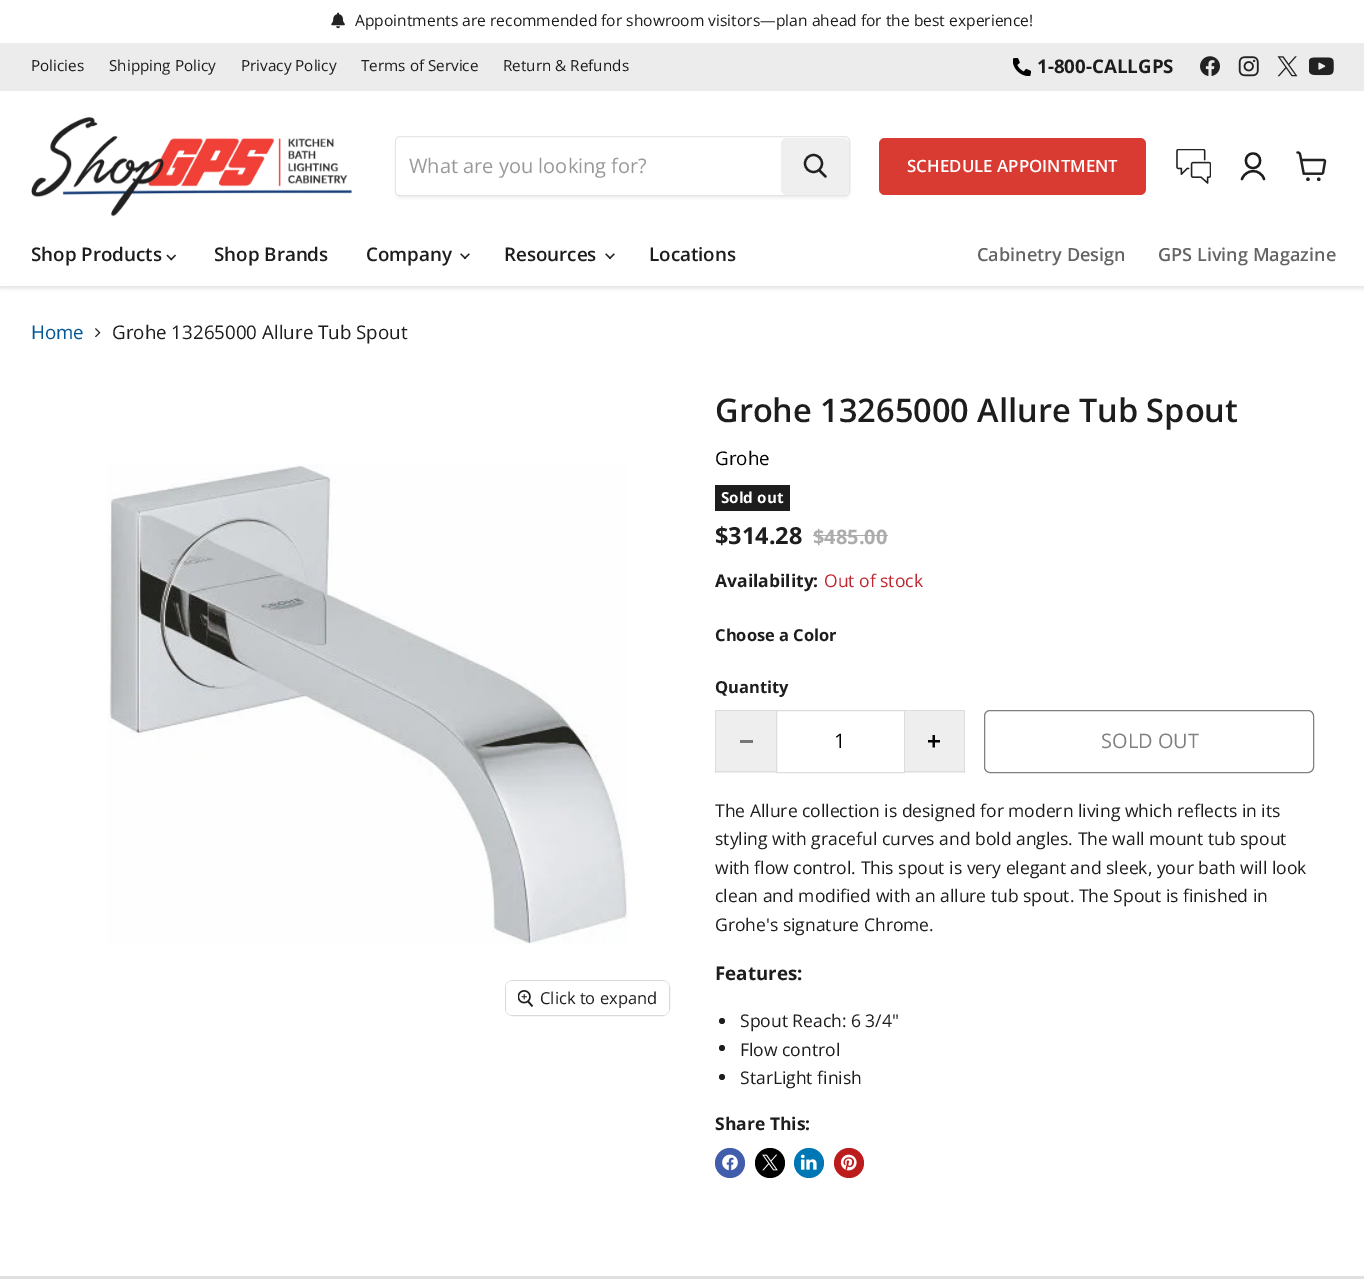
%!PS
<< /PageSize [1364 1279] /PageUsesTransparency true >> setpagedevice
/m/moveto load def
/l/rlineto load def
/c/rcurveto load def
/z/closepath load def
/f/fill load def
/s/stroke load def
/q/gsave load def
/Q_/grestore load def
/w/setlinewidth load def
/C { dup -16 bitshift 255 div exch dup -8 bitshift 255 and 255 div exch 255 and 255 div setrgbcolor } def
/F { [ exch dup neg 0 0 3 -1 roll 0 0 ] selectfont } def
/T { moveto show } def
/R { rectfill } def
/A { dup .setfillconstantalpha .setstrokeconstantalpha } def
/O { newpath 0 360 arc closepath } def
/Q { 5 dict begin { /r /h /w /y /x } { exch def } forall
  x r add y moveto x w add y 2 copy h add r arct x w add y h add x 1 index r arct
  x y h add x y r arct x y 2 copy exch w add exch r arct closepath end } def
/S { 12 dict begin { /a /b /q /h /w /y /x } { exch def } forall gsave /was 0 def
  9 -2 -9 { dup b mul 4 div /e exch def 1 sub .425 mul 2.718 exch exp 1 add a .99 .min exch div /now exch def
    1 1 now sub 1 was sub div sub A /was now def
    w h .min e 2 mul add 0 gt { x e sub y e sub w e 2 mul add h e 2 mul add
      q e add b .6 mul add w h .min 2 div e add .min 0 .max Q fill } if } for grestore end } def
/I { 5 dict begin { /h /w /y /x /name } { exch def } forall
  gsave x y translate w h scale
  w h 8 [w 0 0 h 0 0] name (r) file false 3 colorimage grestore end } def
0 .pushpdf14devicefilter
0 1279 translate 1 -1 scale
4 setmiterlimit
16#FFFFFF C
0 0 1364 1279 R
(1.rgb) 331 12 14 17 I
/OpenSans-Regular 15.6 F
16#1D1D1D C
(Appointments are recommended for showroom visitors—plan ahead for the best experience!) 355 26 T
16#808080 C
0 93 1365 195 0 2.5 .25 S
16#ECECEC C
0 43 1364 48 R
/OpenSans-Regular 15.25 F
16#1D1D1D C
(Policies) 31 71 T
(Shipping Policy) 109 71 T
(Privacy Policy) 241 71 T
(Terms of Service) 361 71 T
(Return & Refunds) 503 71 T
(2.rgb) 1013 58 18 18 I
/OpenSans-Bold 18.75 F
(1-800-CALLGPS) 1037 73 T
(3.rgb) 1200 56 20 20 I
(4.rgb) 1238 56 21 21 I
(5.rgb) 1277 56 21 21 I
(6.rgb) 1309 57 25 19 I
16#FFFFFF C
0 91 1364 195 R
(7.rgb) 31 117 321 100 I
q
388 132 m 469 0 l 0 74 l -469 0 l z 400 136 m 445 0 l 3 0 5 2 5 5 c 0 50 l 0 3 -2 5 -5 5 c -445 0 l -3 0 -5 -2 -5 -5 c 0 -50 l 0 -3 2 -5 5 -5 c z eoclip newpath
16#808080 C
395 139 455 60 5 2 .11 S
Q_
0.2 A
16#808080 C
395.5 136.5 454 59 4.5 Q s
1 A
16#FFFFFF C
400 138 m 381 0 l 0 57 l -381 0 l -2 0 -4 -2 -4 -4 c 0 -49 l 0 -2 2 -4 4 -4 c z f
/OpenSans-Regular 20 F
16#999999 C
(What are you looking for?) 409 173 T
16#EFEFEF C
781 138 68 57 6 Q f
16#222222 C
2.2 w
1 setlinecap
825.5 176.5 m -6 -6 l s
0 setlinecap
813.5 163.5 8.5 O s
16#D93A32 C
879 138 267 57 6 Q f
/OpenSans-SemiBold 16.9 F
16#FFFFFF C
(SCHEDULE APPOINTMENT) 907 172 T
(8.rgb) 1176 149 35 35 I
16#1D1D1D C
2.3 w
1 setlinecap
1 setlinejoin
1253 168 m 9.5 0 9.5 -14.5 0 -14.5 c -9.5 0 -9.5 14.5 0 14.5 c z 1264 179 m -3.5 -10.5 -18 -10.5 -22 0 c s
(9.rgb) 1296 151 31 30 I
/OpenSans-SemiBold 18.75 F
(Shop Products) 31 261 T
(10.rgb) 166 254 10 7 I
(Shop Brands) 214 261 T
(Company) 366 261 T
(11.rgb) 460 253 10 7 I
(Resources) 504 261 T
(11.rgb) 605 253 10 7 I
(Locations) 649 261 T
/OpenSans-SemiBold 18.1 F
16#646464 C
(Cabinetry Design) 977 261 T
(GPS Living Magazine) 1158 261 T
/OpenSans-Regular 18.75 F
16#005696 C
(Home) 31 339 T
(12.rgb) 95 328 6 9 I
16#1D1D1D C
(Grohe 13265000 Allure Tub Spout) 112 339 T
(13.rgb) 107 464 521 480 I
16#D9D9D9 C
1 w
0 setlinecap
0 setlinejoin
505.5 980.5 164 35 7.5 Q s
0.9 A
16#FFFFFF C
506 981 163 34 6 Q f
1 A
(14.rgb) 518 990 16 17 I
/OpenSans-Regular 16.5 F
16#1D1D1D C
(Click to expand) 540 1004 T
/OpenSans-SemiBold 32.5 F
(Grohe 13265000 Allure Tub Spout) 715 422 T
/OpenSans-Regular 18.75 F
16#000000 C
(Grohe) 715 465 T
16#1D1D1D C
715 485 75 26 R
/OpenSans-Bold 15.25 F
16#FFFFFF C
(Sold out) 721 503 T
/OpenSans-Bold 23.5 F
16#1D1D1D C
($314.28) 715 544 T
/OpenSans-Bold 20 F
16#ACACAC C
($485.00) 813 544 T
813 535 75 1 R
/OpenSans-Bold 17.5 F
16#1D1D1D C
(Availability:) 715 587 T
/OpenSans-Regular 17.5 F
16#BF262F C
(Out of stock) 824 587 T
/OpenSans-Bold 16.5 F
16#1D1D1D C
(Choose a Color) 715 641 T
(Quantity) 715 693 T
16#EEEEEE C
716 711 60 62 R
16#DDDDDD C
715 710 61 1 R
715 771 61 1 R
715 710 1 63 R
16#777777 C
740 740 13 3 R
16#DDDDDD C
776.5 710.5 128 62 rectstroke
/OpenSans-Regular 20 F
16#000000 C
(1) 834 748 T
16#EEEEEE C
905 711 59 62 R
16#DDDDDD C
905 710 60 1 R
964 710 1 63 R
905 771 60 1 R
(15.rgb) 928 735 12 13 I
16#808080 C
984.5 710.5 329 62 5.5 Q s
(SOLD OUT) 1101 748 T
/OpenSans-Regular 17.5 F
16#1D1D1D C
(The Allure collection is designed for modern living which reflects in its) 715 817 T
(styling with graceful curves and bold angles. The wall mount tub spout) 715 845 T
(with flow control. This spout is very elegant and sleek, your bath will look) 715 874 T
(clean and modified with an allure tub spout. The Spout is finished in) 715 902 T
(Grohe's signature Chrome.) 715 931 T
/OpenSans-Bold 18.75 F
(Features:) 715 980 T
722 1021 3 O f
/OpenSans-Regular 17.5 F
(Spout Reach: 6 3/4") 740 1027 T
722 1048 3 O f
(Flow control) 740 1056 T
722 1077 3 O f
(StarLight finish) 740 1084 T
/OpenSans-Bold 17.5 F
(Share This:) 715 1130 T
16#425DAB C
730 1163 15 O f
(16.rgb) 722 1154 16 17 I
16#000000 C
770 1163 15 O f
(17.rgb) 762 1154 16 17 I
16#0077B5 C
809 1163 15 O f
(18.rgb) 800 1154 17 16 I
16#BD1C1C C
849 1163 15 O f
(19.rgb) 840 1154 17 17 I
16#E0E0E0 C
0 1276 1364 3 R
.poppdf14devicefilter showpage
